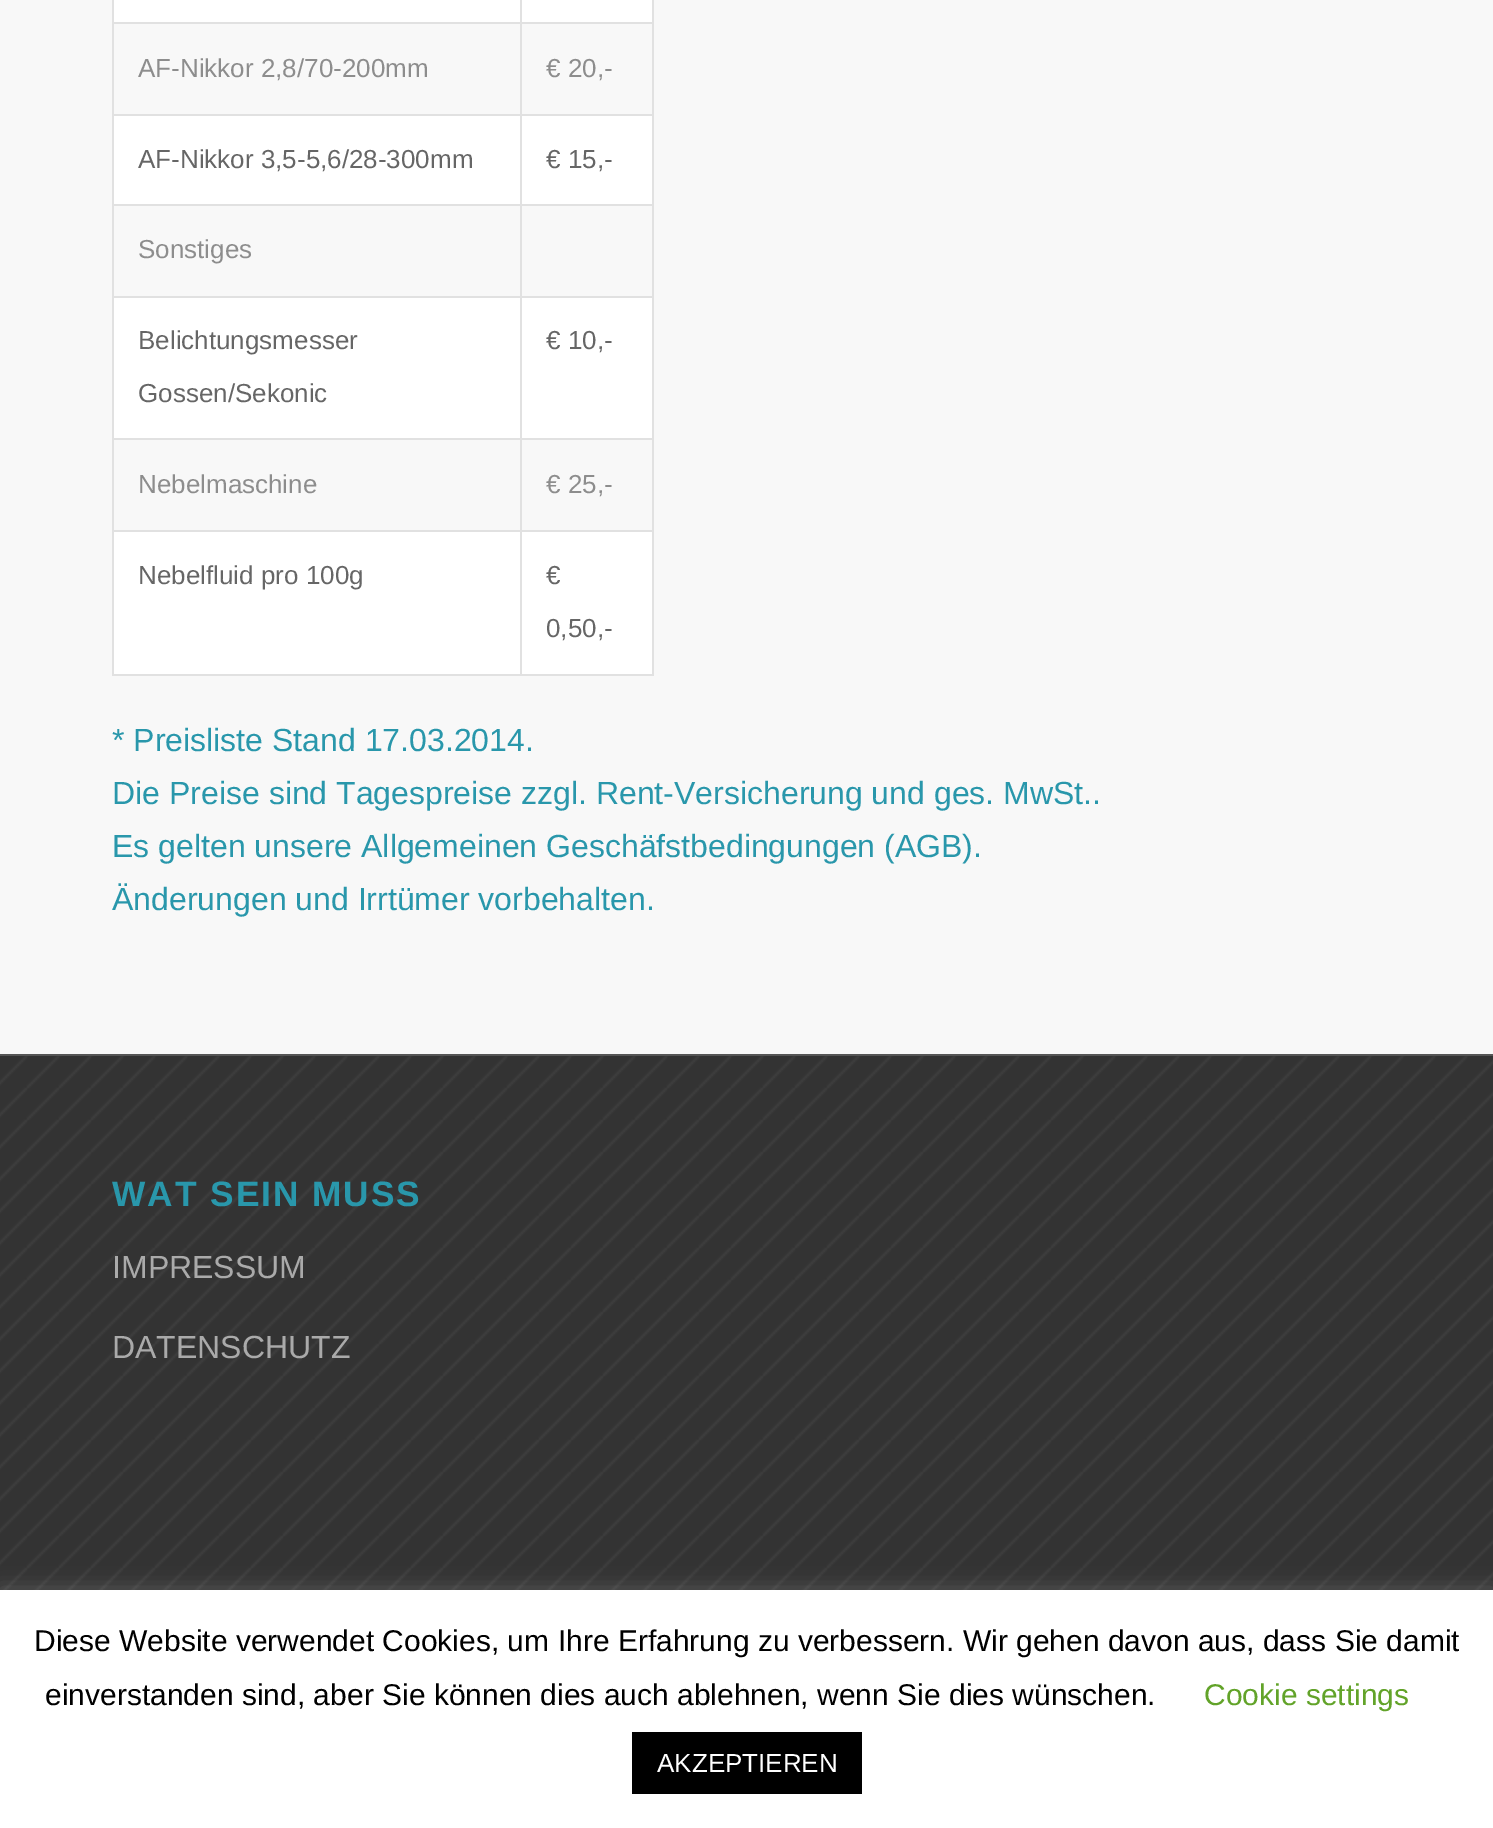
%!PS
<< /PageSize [1493 1828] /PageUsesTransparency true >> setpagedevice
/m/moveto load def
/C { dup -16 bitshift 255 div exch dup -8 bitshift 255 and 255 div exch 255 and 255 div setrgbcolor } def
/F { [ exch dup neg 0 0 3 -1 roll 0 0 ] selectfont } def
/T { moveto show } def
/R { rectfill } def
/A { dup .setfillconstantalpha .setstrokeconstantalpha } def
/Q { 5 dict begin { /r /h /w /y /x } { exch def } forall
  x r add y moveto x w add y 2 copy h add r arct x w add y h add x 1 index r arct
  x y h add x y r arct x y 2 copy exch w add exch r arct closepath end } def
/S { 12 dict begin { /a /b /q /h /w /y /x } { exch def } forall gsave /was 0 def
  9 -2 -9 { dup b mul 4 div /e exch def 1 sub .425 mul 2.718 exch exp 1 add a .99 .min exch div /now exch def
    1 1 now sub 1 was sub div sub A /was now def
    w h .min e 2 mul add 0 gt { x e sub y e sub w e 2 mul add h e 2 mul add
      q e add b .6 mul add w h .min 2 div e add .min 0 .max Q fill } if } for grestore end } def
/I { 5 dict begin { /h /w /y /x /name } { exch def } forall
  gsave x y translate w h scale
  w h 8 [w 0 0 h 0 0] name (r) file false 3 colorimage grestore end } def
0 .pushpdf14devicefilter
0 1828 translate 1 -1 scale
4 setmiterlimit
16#F8F8F8 C
0 0 1493 1828 R
16#FFFFFF C
114 0 538 674 R
16#F8F8F8 C
114 24 538 90 R
114 206 538 90 R
114 440 538 90 R
16#E1E1E1 C
652 0 2 676 R
520 674 134 2 R
520 530 2 146 R
520 530 134 2 R
520 438 2 94 R
520 438 134 2 R
520 296 2 144 R
520 296 134 2 R
520 204 2 94 R
520 204 134 2 R
520 114 2 92 R
520 114 134 2 R
520 22 2 94 R
520 22 134 2 R
520 0 2 24 R
112 674 410 2 R
112 530 2 146 R
112 530 410 2 R
112 438 2 94 R
112 438 410 2 R
112 296 2 144 R
112 296 410 2 R
112 204 2 94 R
112 204 410 2 R
112 114 2 92 R
112 114 410 2 R
112 22 2 94 R
112 22 410 2 R
112 0 2 24 R
/LiberationSans-Regular 26 F
16#8D8D8D C
(AF-Nikkor 2,8/70-200mm) 138 77 T
(€ 20,-) 546 77 T
16#666666 C
(AF-Nikkor 3,5-5,6/28-300mm) 138 168 T
(€ 15,-) 546 168 T
16#8D8D8D C
(Sonstiges) 138 258 T
16#666666 C
(Belichtungsmesser) 138 349 T
(Gossen/Sekonic) 138 402 T
(€ 10,-) 546 349 T
16#8D8D8D C
(Nebelmaschine) 138 493 T
(€ 25,-) 546 493 T
16#666666 C
(Nebelfluid pro 100g) 138 584 T
(€) 546 584 T
(0,50,-) 546 637 T
/LiberationSans-Regular 32 F
16#2997AB C
(* Preisliste Stand 17.03.2014.) 112 751 T
(Die Preise sind Tagespreise zzgl. Rent-Versicherung und ges. MwSt..) 112 804 T
(Es gelten unsere Allgemeinen Geschäfstbedingungen \(AGB\).) 112 857 T
(Änderungen und Irrtümer vorbehalten.) 112 910 T
16#333333 C
0 1056 1493 534 R
(1.rgb) 0 1056 1493 534 I
16#555555 C
0 1054 1493 2 R
/LiberationSans-Bold 35.25 F
16#2997AB C
112 1206 m 2 0 (WAT SEIN MUSS) ashow
/LiberationSans-Regular 32 F
16#AAAAAA C
(IMPRESSUM) 112 1278 T
(DATENSCHUTZ) 112 1358 T
16#ACABAB C
0 1588 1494 238 0 10 .3 S
16#FFFFFF C
0 1590 1493 238 R
/LiberationSans-Regular 30 F
16#000000 C
(Diese Website verwendet Cookies, um Ihre Erfahrung zu verbessern. Wir gehen davon aus, dass Sie damit) 34 1651 T
(einverstanden sind, aber Sie können dies auch ablehnen, wenn Sie dies wünschen.) 45 1705 T
16#62A329 C
(Cookie settings) 1204 1705 T
16#000000 C
632 1732 230 62 R
/LiberationSans-Regular 26 F
16#FFFFFF C
(AKZEPTIEREN) 657 1772 T
.poppdf14devicefilter showpage
